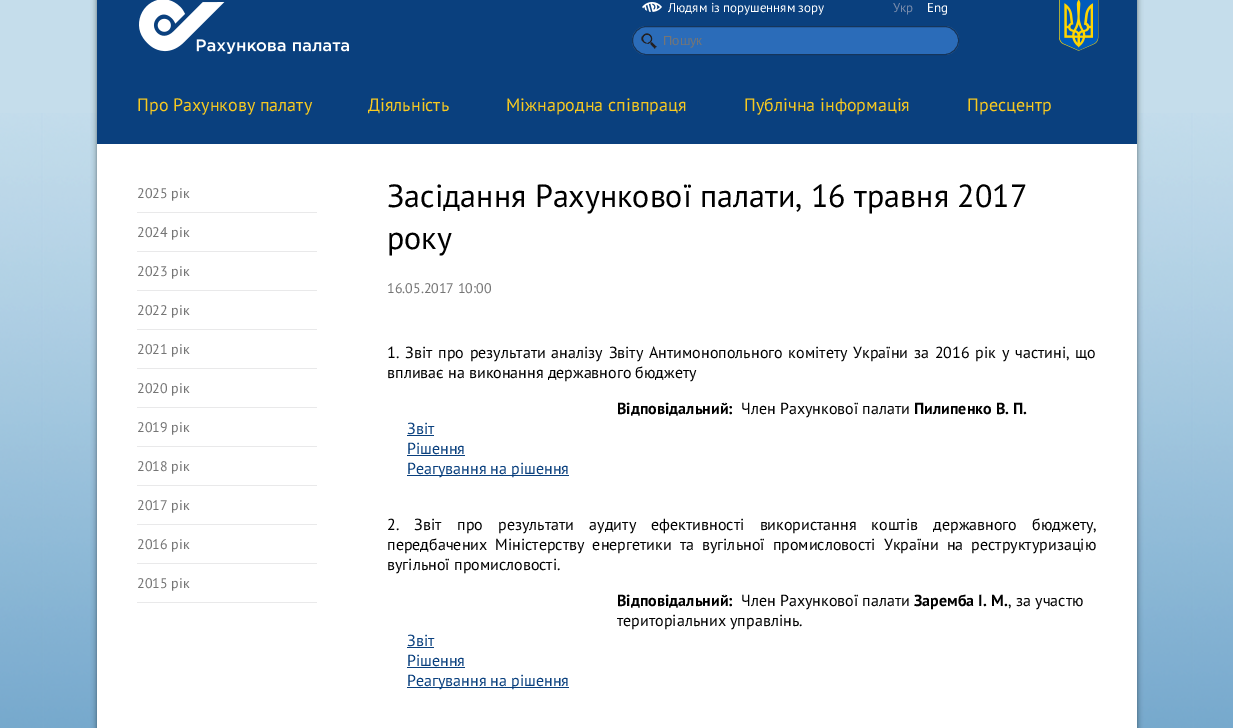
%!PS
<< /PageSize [1233 728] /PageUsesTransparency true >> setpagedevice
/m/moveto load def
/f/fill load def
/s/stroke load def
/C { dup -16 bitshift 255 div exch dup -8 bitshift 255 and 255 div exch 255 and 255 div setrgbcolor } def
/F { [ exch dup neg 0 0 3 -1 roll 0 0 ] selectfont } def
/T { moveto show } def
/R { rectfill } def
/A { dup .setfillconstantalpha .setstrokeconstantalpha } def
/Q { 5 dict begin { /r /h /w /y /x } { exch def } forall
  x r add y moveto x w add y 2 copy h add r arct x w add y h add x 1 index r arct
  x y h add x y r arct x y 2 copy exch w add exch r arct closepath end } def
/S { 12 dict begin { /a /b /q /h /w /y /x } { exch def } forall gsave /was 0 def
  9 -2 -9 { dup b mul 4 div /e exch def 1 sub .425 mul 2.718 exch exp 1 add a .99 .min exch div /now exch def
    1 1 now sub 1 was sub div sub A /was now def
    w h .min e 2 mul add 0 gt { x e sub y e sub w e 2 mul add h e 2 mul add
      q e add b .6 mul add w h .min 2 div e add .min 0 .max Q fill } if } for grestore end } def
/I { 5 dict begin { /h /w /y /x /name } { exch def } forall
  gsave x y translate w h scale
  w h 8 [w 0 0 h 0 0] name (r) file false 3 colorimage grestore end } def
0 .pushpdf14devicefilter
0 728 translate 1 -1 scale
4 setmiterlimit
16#C5DDEB C
0 0 1233 728 R
(1.rgb) 0 113 1233 615 I
16#000000 C
97 -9 1040 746 0 3 .5 S
16#0A407E C
97 0 1040 144 R
(2.rgb) 139 0 210 54 I
(3.rgb) 642 2 20 10 I
/PTSans-Regular 13 F
16#FFFFFF C
(Людям із порушенням зору) 668 12 T
16#788BAB C
(Укр) 893 12 T
16#FFFFFF C
(Eng) 927 12 T
16#2B6CB9 C
632 26 327 29 14.5 Q f
(4.rgb) 641 33 16 16 I
16#15355B C
632.5 26.5 326 28 14 Q s
/LiberationSans-Regular 13 F
16#757575 C
(Пошук) 663 45 T
(5.rgb) 1059 0 40 51 I
/PTSans-Regular 18 F
16#F7C921 C
(Про Рахункову палату) 137 111 T
(Діяльність) 368 111 T
(Міжнародна співпраця) 506 111 T
(Публічна інформація) 744 111 T
(Пресцентр) 967 111 T
16#FFFFFF C
97 144 1040 584 R
16#E9E9EA C
137 212 180 1 R
/PTSans-Regular 14 F
16#757575 C
(2025 рік) 137 198 T
16#E9E9EA C
137 251 180 1 R
16#757575 C
(2024 рік) 137 237 T
16#E9E9EA C
137 290 180 1 R
16#757575 C
(2023 рік) 137 276 T
16#E9E9EA C
137 329 180 1 R
16#757575 C
(2022 рік) 137 315 T
16#E9E9EA C
137 368 180 1 R
16#757575 C
(2021 рік) 137 354 T
16#E9E9EA C
137 407 180 1 R
16#757575 C
(2020 рік) 137 393 T
16#E9E9EA C
137 446 180 1 R
16#757575 C
(2019 рік) 137 432 T
16#E9E9EA C
137 485 180 1 R
16#757575 C
(2018 рік) 137 471 T
16#E9E9EA C
137 524 180 1 R
16#757575 C
(2017 рік) 137 510 T
16#E9E9EA C
137 563 180 1 R
16#757575 C
(2016 рік) 137 549 T
16#E9E9EA C
137 602 180 1 R
16#757575 C
(2015 рік) 137 588 T
/PTSans-Regular 32 F
16#000000 C
(Засідання Рахункової палати, 16 травня 2017) 387 207 T
(року) 387 249 T
/PTSans-Regular 14 F
16#757575 C
(16.05.2017 10:00) 387 293 T
/PTSans-Regular 16 F
16#000000 C
387 358 m 1.5 0 32 (1. Звіт про результати аналізу Звіту Антимонопольного комітету України за 2016 рік у частині, що) widthshow
(впливає на виконання державного бюджету) 387 378 T
/PTSans-Bold 16 F
(Відповідальний:) 617 414 T
/PTSans-Regular 16 F
(Член Рахункової палати) 741 414 T
/PTSans-Bold 16 F
(Пилипенко В. П.) 914 414 T
/PTSans-Regular 16 F
16#0A407E C
(Звіт) 407 434 T
407 435 27 1 R
(Рішення) 407 454 T
407 455 58 1 R
407 475 162 1 R
(Реагування на рішення) 407 474 T
16#000000 C
387 530 m 11 0 32 (2. Звіт про результати аудиту ефективності використання коштів державного бюджету,) widthshow
387 550 m 3.75 0 32 (передбачених Міністерству енергетики та вугільної промисловості України на реструктуризацію) widthshow
(вугільної промисловості.) 387 570 T
/PTSans-Bold 16 F
(Відповідальний:) 617 606 T
/PTSans-Regular 16 F
(Член Рахункової палати) 741 606 T
/PTSans-Bold 16 F
(Заремба І. М.) 914 606 T
/PTSans-Regular 16 F
(, за участю) 1008 606 T
(територіальних управлінь.) 617 626 T
16#0A407E C
(Звіт) 407 646 T
407 647 27 1 R
(Рішення) 407 666 T
407 667 58 1 R
407 687 162 1 R
(Реагування на рішення) 407 686 T
.poppdf14devicefilter showpage
